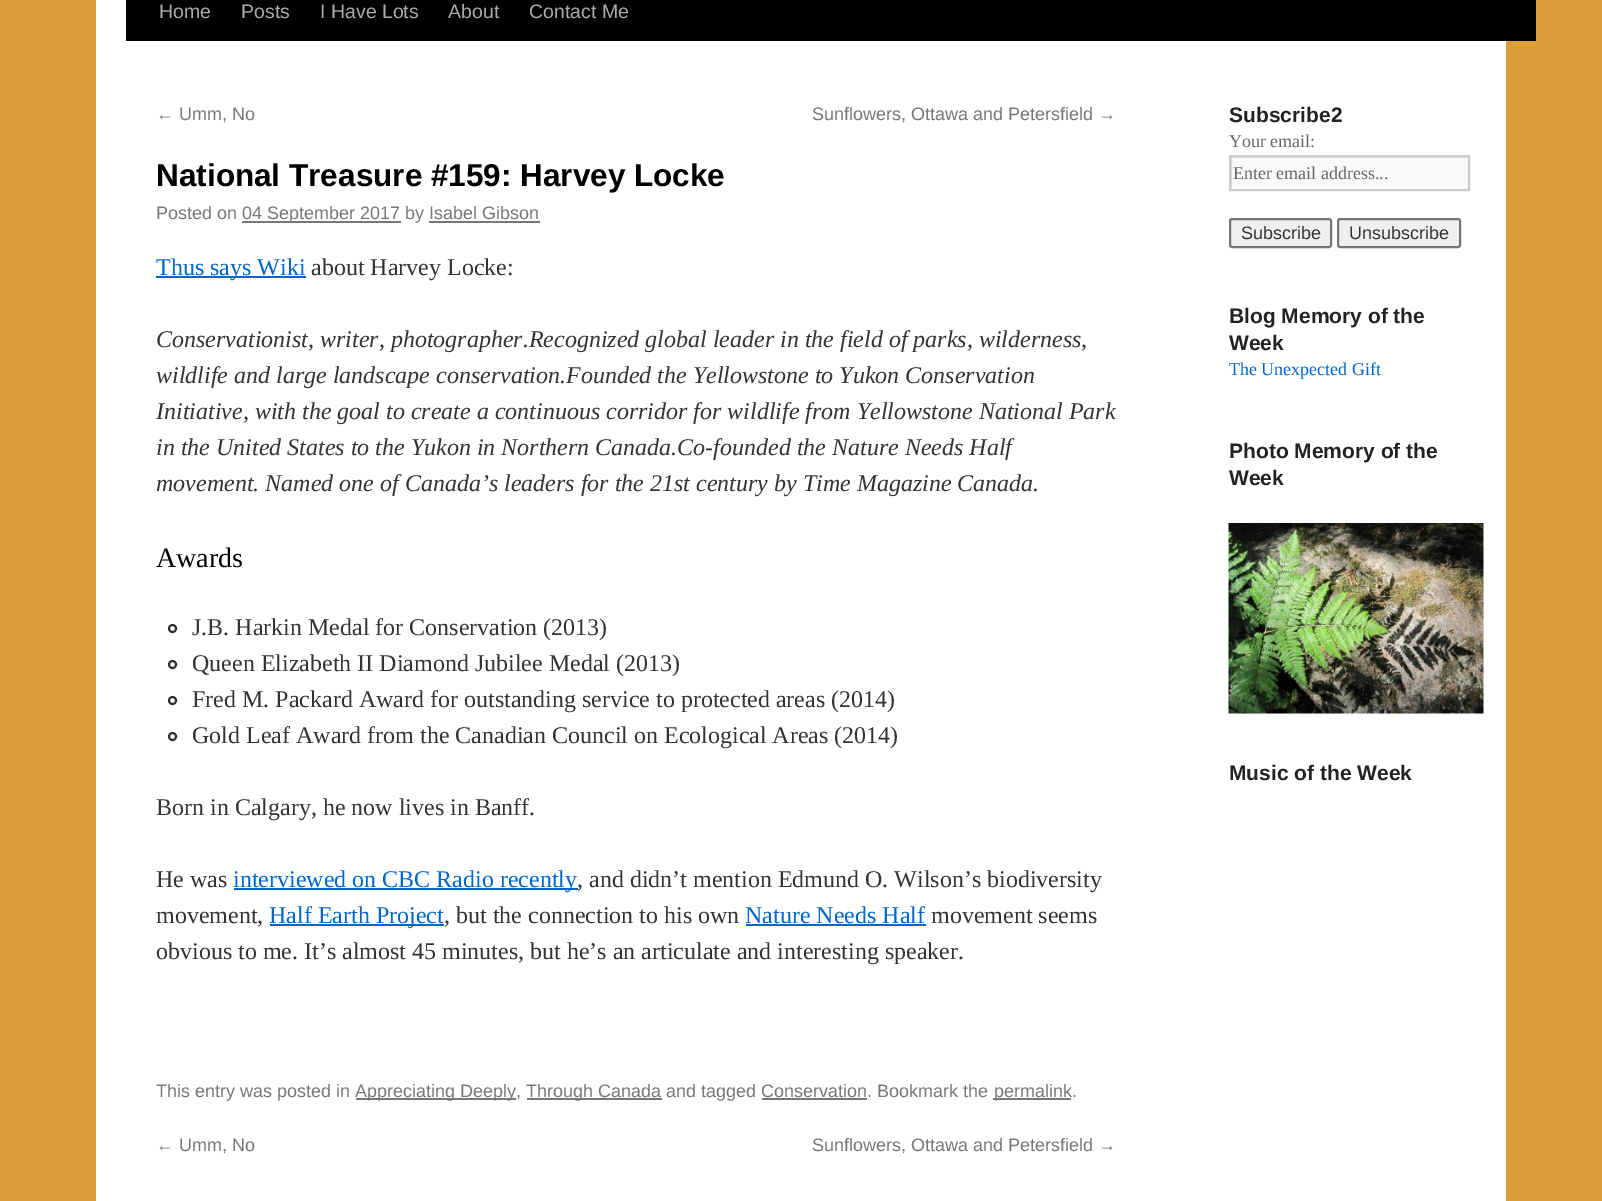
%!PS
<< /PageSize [1602 1201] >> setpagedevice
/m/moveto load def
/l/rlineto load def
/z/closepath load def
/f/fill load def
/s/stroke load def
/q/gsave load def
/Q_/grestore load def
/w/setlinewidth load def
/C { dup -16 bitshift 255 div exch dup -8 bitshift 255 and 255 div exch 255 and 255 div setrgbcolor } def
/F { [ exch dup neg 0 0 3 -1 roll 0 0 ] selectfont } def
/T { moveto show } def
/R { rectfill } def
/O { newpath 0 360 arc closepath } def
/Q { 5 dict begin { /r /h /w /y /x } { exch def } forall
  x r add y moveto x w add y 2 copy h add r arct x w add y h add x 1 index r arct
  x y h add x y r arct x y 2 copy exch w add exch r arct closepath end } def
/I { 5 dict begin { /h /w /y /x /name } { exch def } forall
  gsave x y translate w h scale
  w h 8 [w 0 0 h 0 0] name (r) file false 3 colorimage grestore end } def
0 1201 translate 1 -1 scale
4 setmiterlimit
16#DD9C39 C
0 0 1602 1201 R
16#FFFFFF C
96 0 1410 1201 R
16#000000 C
126 0 1410 41 R
/LiberationSans-Regular 19.5 F
16#AAAAAA C
(Home) 159 18 T
(Posts) 241 18 T
(I Have Lots) 320 18 T
(About) 448 18 T
(Contact Me) 529 18 T
/LiberationSans-Regular 18 F
16#777777 C
(← Umm, No) 156 120 T
(Sunflowers, Ottawa and Petersfield →) 812 120 T
/LiberationSans-Bold 31.5 F
16#000000 C
(National Treasure #159: Harvey Locke) 156 186 T
/LiberationSans-Regular 18 F
16#777777 C
(Posted on) 156 219 T
242 221 159 2 R
(04 September 2017 by Isabel Gibson) 242 219 T
429 221 111 2 R
16#0066CC C
156 276 150 2 R
/LiberationSerif-Regular 24 F
(Thus says Wiki) 156 275 T
16#333333 C
(about Harvey Locke:) 311 275 T
/LiberationSerif-Italic 24 F
(Conservationist, writer, photographer.Recognized global leader in the field of parks, wilderness,) 156 347 T
(wildlife and large landscape conservation.Founded the Yellowstone to Yukon Conservation) 156 383 T
(Initiative, with the goal to create a continuous corridor for wildlife from Yellowstone National Park) 156 419 T
(in the United States to the Yukon in Northern Canada.Co-founded the Nature Needs Half) 156 455 T
(movement. Named one of Canada’s leaders for the 21st century by Time Magazine Canada.) 156 491 T
/LiberationSerif-Regular 28 F
16#000000 C
(Awards) 156 567 T
16#333333 C
2 w
172.5 628.5 3.5 O s
/LiberationSerif-Regular 24 F
(J.B. Harkin Medal for Conservation \(2013\)) 192 635 T
172.5 664.5 3.5 O s
(Queen Elizabeth II Diamond Jubilee Medal \(2013\)) 192 671 T
172.5 700.5 3.5 O s
(Fred M. Packard Award for outstanding service to protected areas \(2014\)) 192 707 T
172.5 736.5 3.5 O s
(Gold Leaf Award from the Canadian Council on Ecological Areas \(2014\)) 192 743 T
(Born in Calgary, he now lives in Banff.) 156 815 T
(He was) 156 887 T
16#0066CC C
234 888 344 2 R
(interviewed on CBC Radio recently) 233 887 T
16#333333 C
(, and didn’t mention Edmund O. Wilson’s biodiversity) 577 887 T
(movement,) 156 923 T
16#0066CC C
270 924 174 2 R
(Half Earth Project) 269 923 T
16#333333 C
(, but the connection to his own) 444 923 T
16#0066CC C
(Nature Needs Half) 745 923 T
746 924 180 2 R
16#333333 C
(movement seems) 931 923 T
(obvious to me. It’s almost 45 minutes, but he’s an articulate and interesting speaker.) 156 959 T
/LiberationSans-Regular 18 F
16#777777 C
(This entry was posted in) 156 1097 T
356 1098 160 2 R
(Appreciating Deeply,) 355 1097 T
527 1098 135 2 R
(Through Canada and tagged Conservation. Bookmark the) 526 1097 T
993 1098 78 2 R
(permalink.) 994 1097 T
762 1098 105 2 R
(← Umm, No) 156 1151 T
(Sunflowers, Ottawa and Petersfield →) 812 1151 T
/LiberationSans-Bold 21 F
16#222222 C
(Subscribe2) 1229 122 T
/LiberationSerif-Regular 18 F
16#666666 C
(Your email:) 1229 147 T
16#F9F9F9 C
1232 158 236 31 R
q
1230 156 239 33 rectclip
16#E0E0E0 C
1082 8 m 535 0 l 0 330 l -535 0 l z 1232 158 m 238 0 l 0 32 l -238 0 l z eofill
Q_
16#CCCCCC C
1230 156 239 34 rectstroke
16#666666 C
(Enter email address...) 1233 179 T
16#EFEFEF C
1230 219 101 28 2 Q q f Q_
16#767676 C
s
/LiberationSans-Regular 18 F
16#333333 C
(Subscribe) 1241 239 T
16#EFEFEF C
1338 219 122 28 2 Q q f Q_
16#767676 C
s
16#333333 C
(Unsubscribe) 1349 239 T
/LiberationSans-Bold 21 F
16#222222 C
(Blog Memory of the) 1229 323 T
(Week) 1229 350 T
/LiberationSerif-Regular 18 F
16#0066CC C
(The Unexpected Gift) 1229 375 T
/LiberationSans-Bold 21 F
16#222222 C
(Photo Memory of the) 1229 458 T
(Week) 1229 485 T
(1.rgb) 1228 523 256 191 I
(Music of the Week) 1229 780 T
showpage
